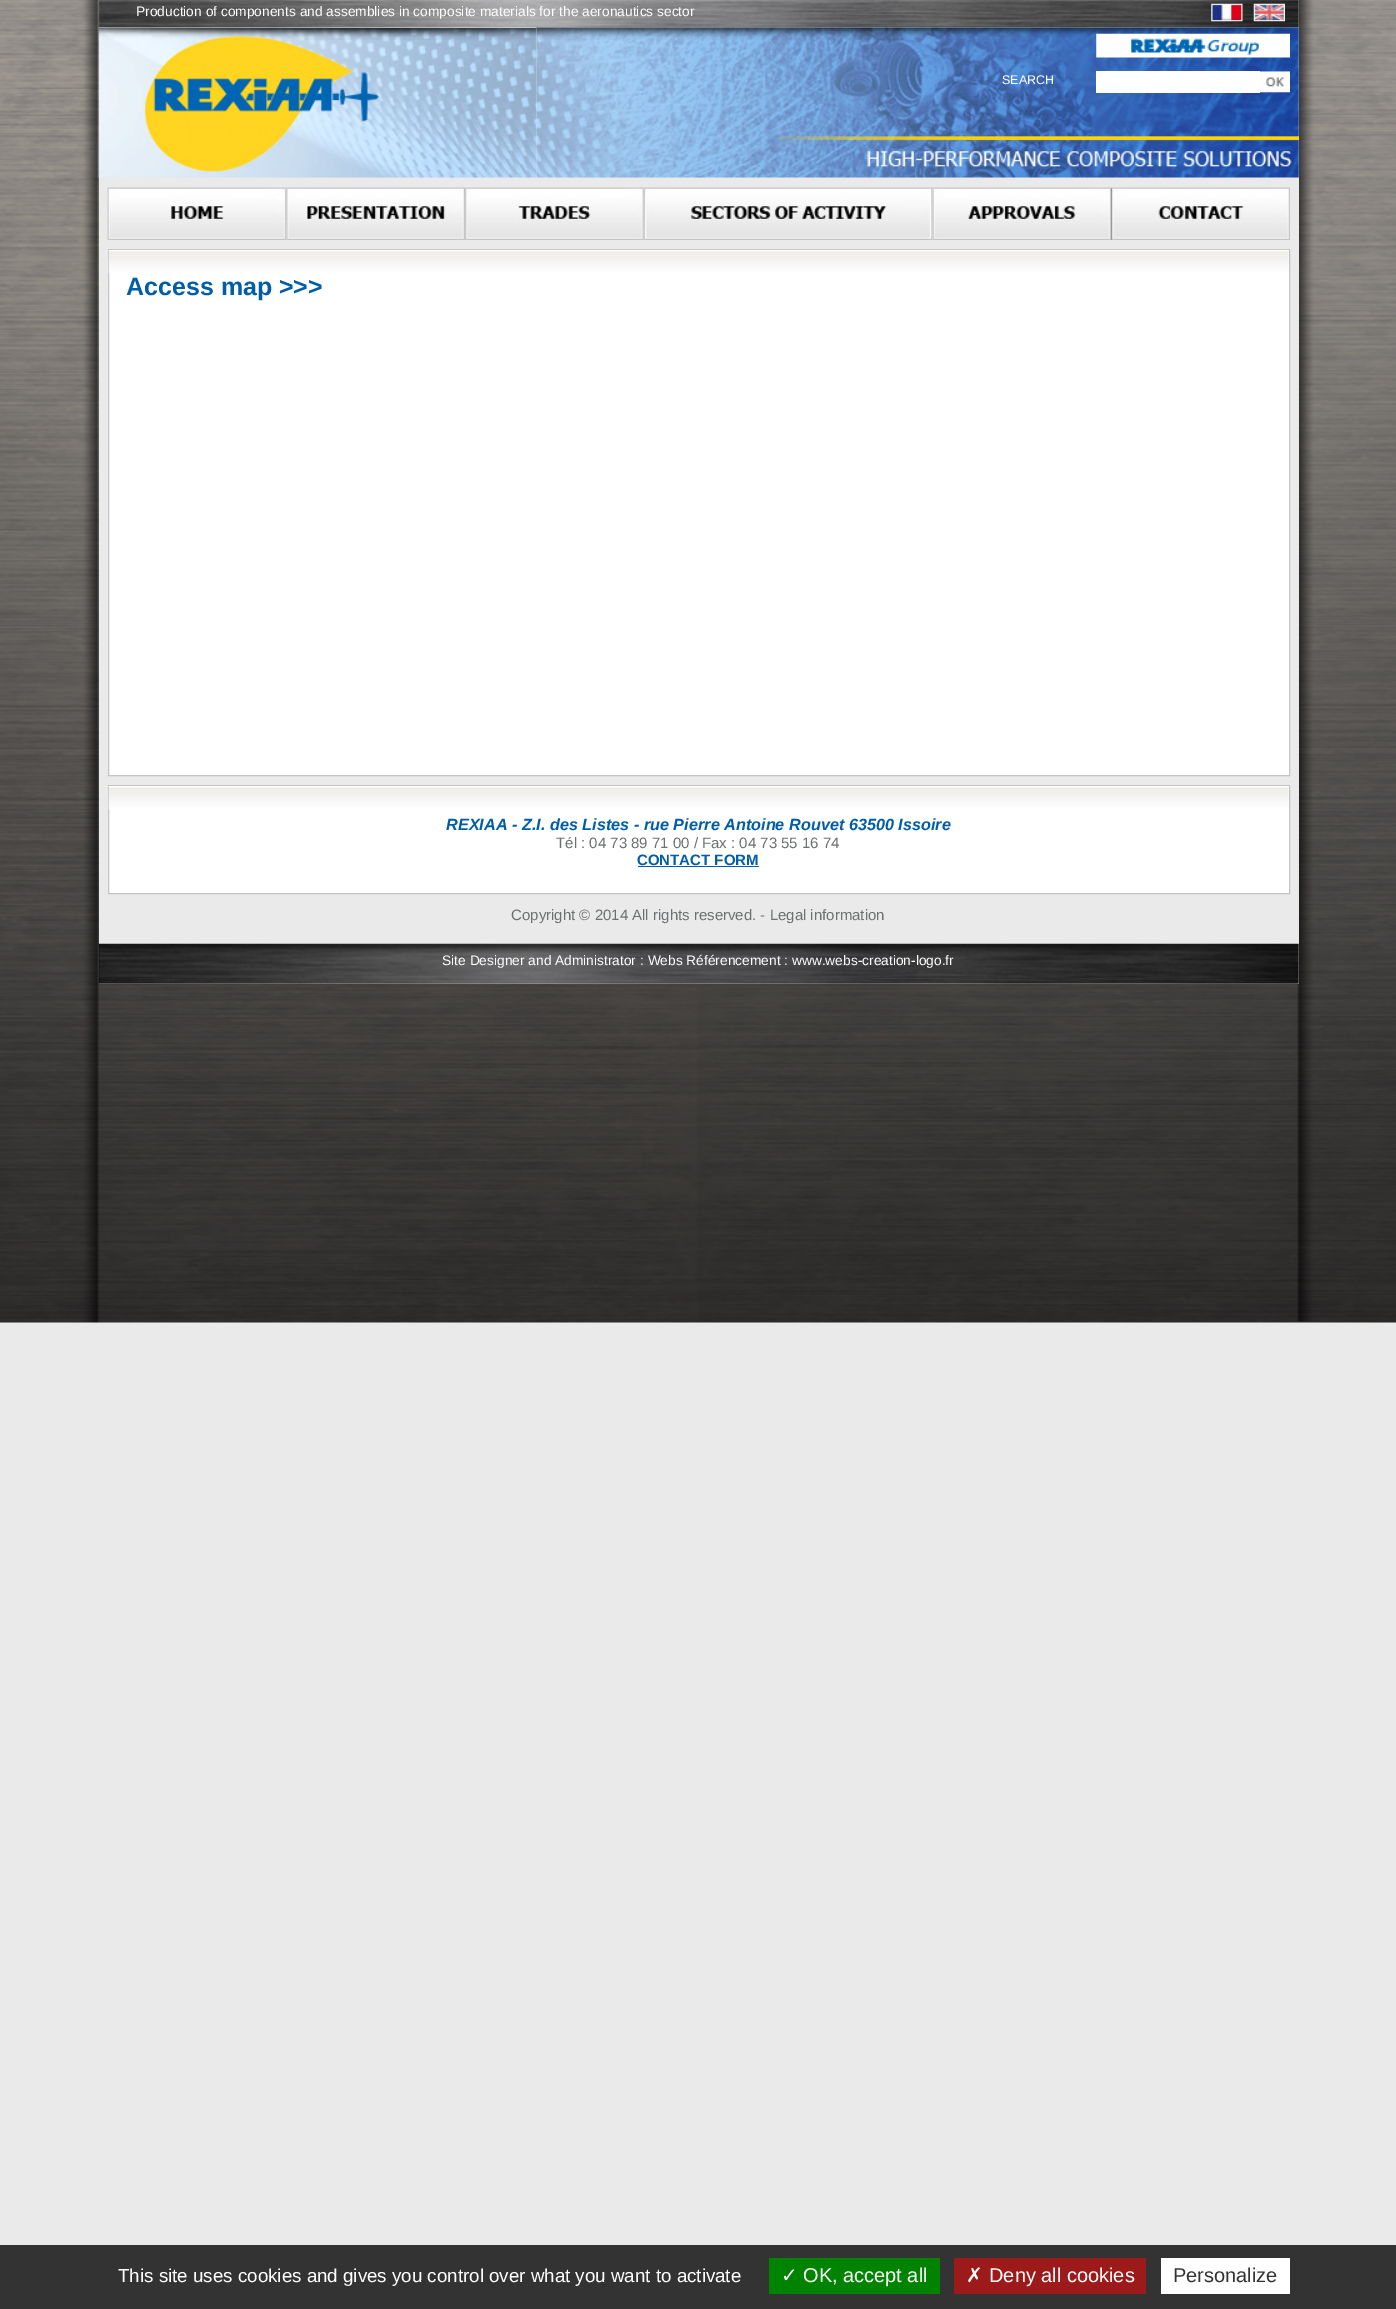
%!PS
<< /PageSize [1396 2309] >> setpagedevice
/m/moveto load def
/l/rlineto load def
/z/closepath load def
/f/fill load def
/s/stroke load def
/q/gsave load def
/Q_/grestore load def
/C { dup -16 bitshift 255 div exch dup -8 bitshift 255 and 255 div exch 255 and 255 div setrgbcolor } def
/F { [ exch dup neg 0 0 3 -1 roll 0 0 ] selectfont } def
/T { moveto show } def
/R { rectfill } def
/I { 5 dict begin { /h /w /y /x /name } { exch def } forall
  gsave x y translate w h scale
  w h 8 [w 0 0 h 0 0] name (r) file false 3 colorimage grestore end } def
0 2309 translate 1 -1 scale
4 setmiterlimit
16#EAEAEA C
0 0 1396 2309 R
(1.rgb) 0 0 1396 1323 I
99 177 1200 767 R
(5.rgb) 98 27 438 151 I
99 0 1200 28 R
(2.rgb) 98 0 1201 28 I
/LiberationSans-Regular 13.75 F
16#FFFFFF C
(Production of components and assemblies in composite materials for the aeronautics sector) 136 16 T
(3.rgb) 1211 3 32 19 I
(4.rgb) 1253 3 32 19 I
16#EAEAEA C
536 28 763 149 R
(6.rgb) 536 27 763 151 I
(7.rgb) 1096 33 194 25 I
/LiberationSans-Regular 12.5 F
16#FFFFFF C
(SEARCH) 1002 84 T
1096 71 164 22 R
(8.rgb) 1260 71 30 22 I
(9.rgb) 107 187 180 53 I
(10.rgb) 286 187 179 53 I
(11.rgb) 465 187 179 53 I
(12.rgb) 644 187 289 53 I
(13.rgb) 932 187 180 53 I
(14.rgb) 1111 187 179 53 I
108.5 249.5 m 1181 0 l 0 526 l -1181 0 l z q f Q_
16#C4C4C5 C
s
(15.rgb) 108 250 1181 23 I
/LiberationSans-Bold 25 F
16#005DA8 C
(Access map >>>) 126 295 T
16#FFFFFF C
108.5 785.5 m 1181 0 l 0 108 l -1181 0 l z q f Q_
16#C4C4C5 C
s
(16.rgb) 108 786 1181 23 I
/LiberationSans-BoldItalic 16.25 F
16#005DA8 C
(REXIAA - Z.I. des Listes - rue Pierre Antoine Rouvet 63500 Issoire) 446 830 T
/LiberationSans-Regular 15 F
16#6D7070 C
(Tél : 04 73 89 71 00 / Fax : 04 73 55 16 74) 556 848 T
/LiberationSans-Bold 15 F
16#005DA8 C
(CONTACT FORM) 637 865 T
638 866 121 1 R
/LiberationSans-Regular 15 F
16#6D7070 C
(Copyright © 2014 All rights reserved. - Legal information) 511 920 T
16#FFFFFF C
99 944 1200 40 R
(17.rgb) 98 943 1201 41 I
/LiberationSans-Regular 13.75 F
(Site Designer and Administrator : Webs Référencement : www.webs-creation-logo.fr) 442 965 T
16#333333 C
0 2245 1396 64 R
/LiberationSans-Regular 18.75 F
16#FFFFFF C
(This site uses cookies and gives you control over what you want to activate) 118 2282 T
16#008300 C
769 2258 171 36 R
/DejaVuSans-Regular 20 F
16#FFFFFF C
(✓) 781 2282 T
/LiberationSans-Regular 20 F
(OK, accept all) 803 2282 T
16#9C1A1A C
954 2258 192 36 R
/DejaVuSans-Regular 20 F
16#FFFFFF C
(✗) 966 2282 T
/LiberationSans-Regular 20 F
(Deny all cookies) 989 2282 T
1161 2258 129 36 R
16#333333 C
(Personalize) 1173 2282 T
showpage
